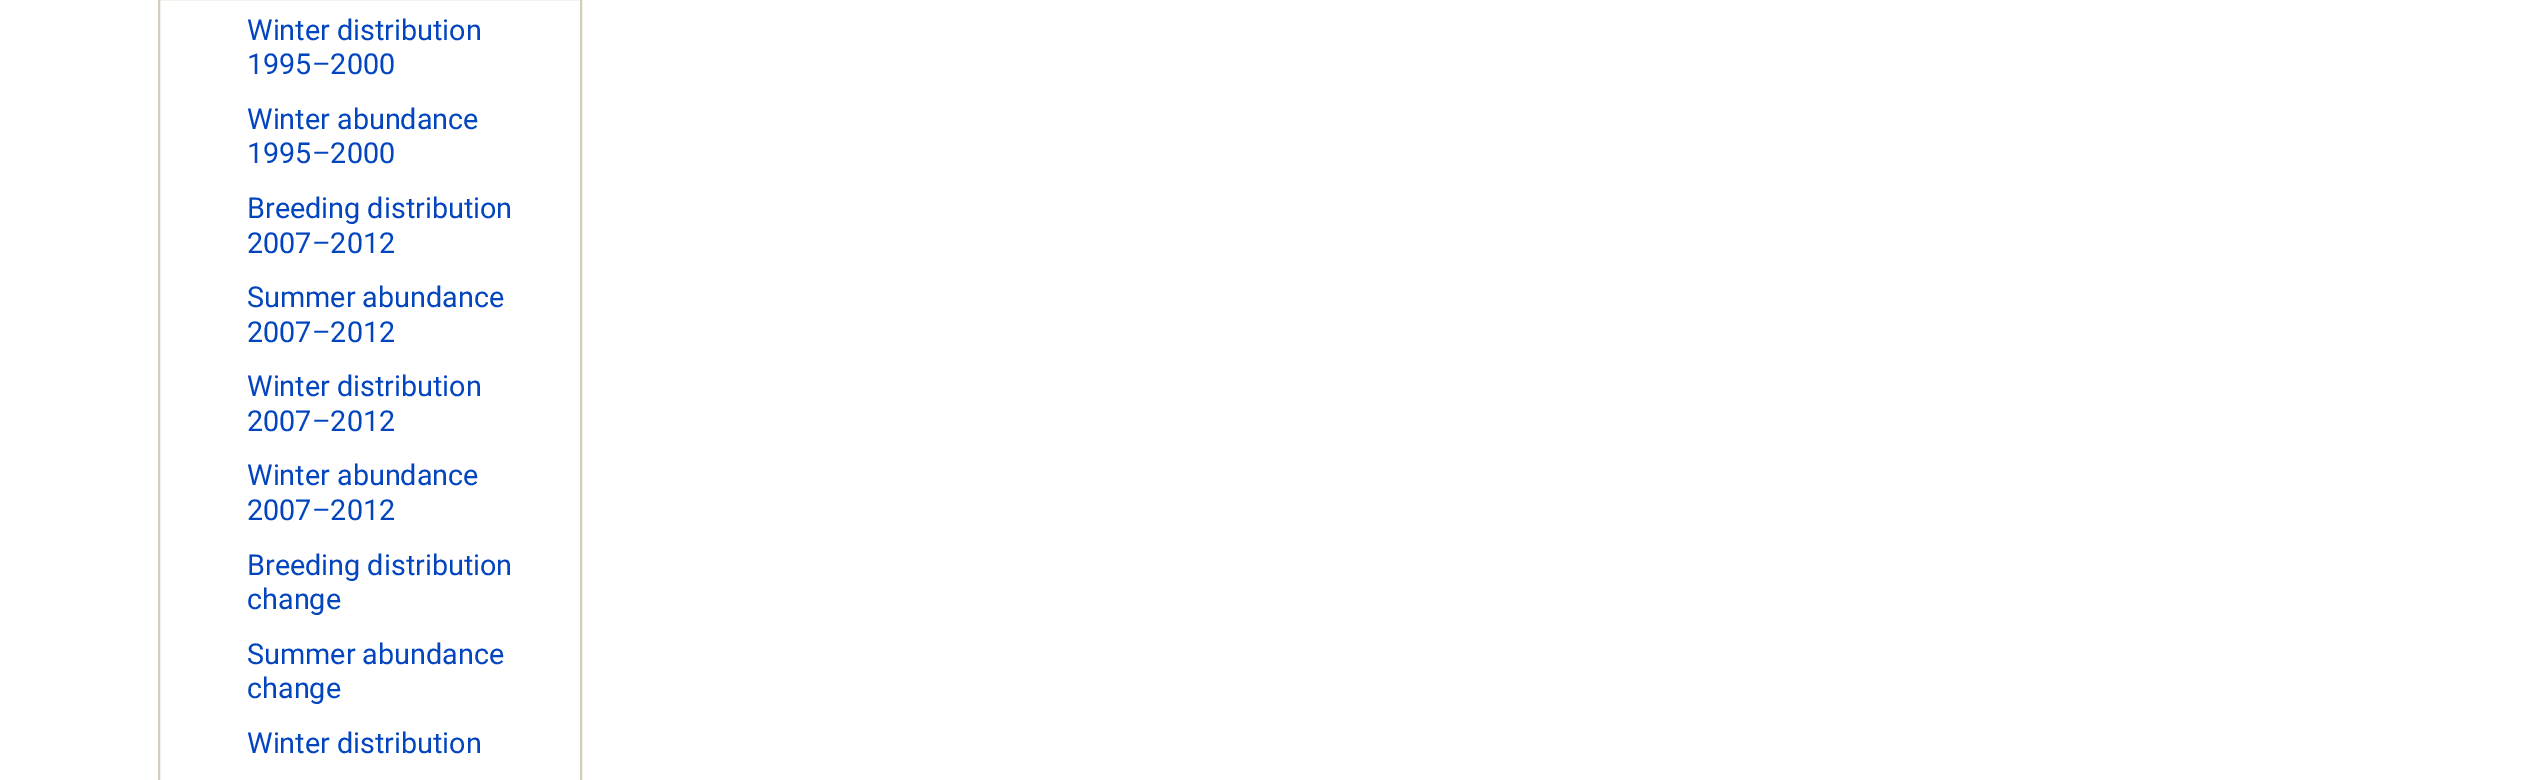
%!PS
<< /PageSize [2533 780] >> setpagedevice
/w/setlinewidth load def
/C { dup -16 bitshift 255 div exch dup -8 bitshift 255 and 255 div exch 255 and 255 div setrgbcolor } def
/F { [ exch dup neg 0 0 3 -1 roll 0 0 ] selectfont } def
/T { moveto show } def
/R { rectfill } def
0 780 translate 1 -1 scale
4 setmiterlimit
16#FFFFFF C
0 0 2533 780 R
16#D4CEB9 C
2 w
159 -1 422 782 rectstroke
/Roboto-Regular 28.75 F
16#0345BF C
(Winter distribution) 247 40 T
(1995–2000) 247 74 T
(Winter abundance) 247 129 T
(1995–2000) 247 163 T
(Breeding distribution) 247 218 T
(2007–2012) 247 253 T
(Summer abundance) 247 307 T
(2007–2012) 247 342 T
(Winter distribution) 247 396 T
(2007–2012) 247 431 T
(Winter abundance) 247 485 T
(2007–2012) 247 520 T
(Breeding distribution) 247 575 T
(change) 247 609 T
(Summer abundance) 247 664 T
(change) 247 698 T
(Winter distribution) 247 753 T
showpage
